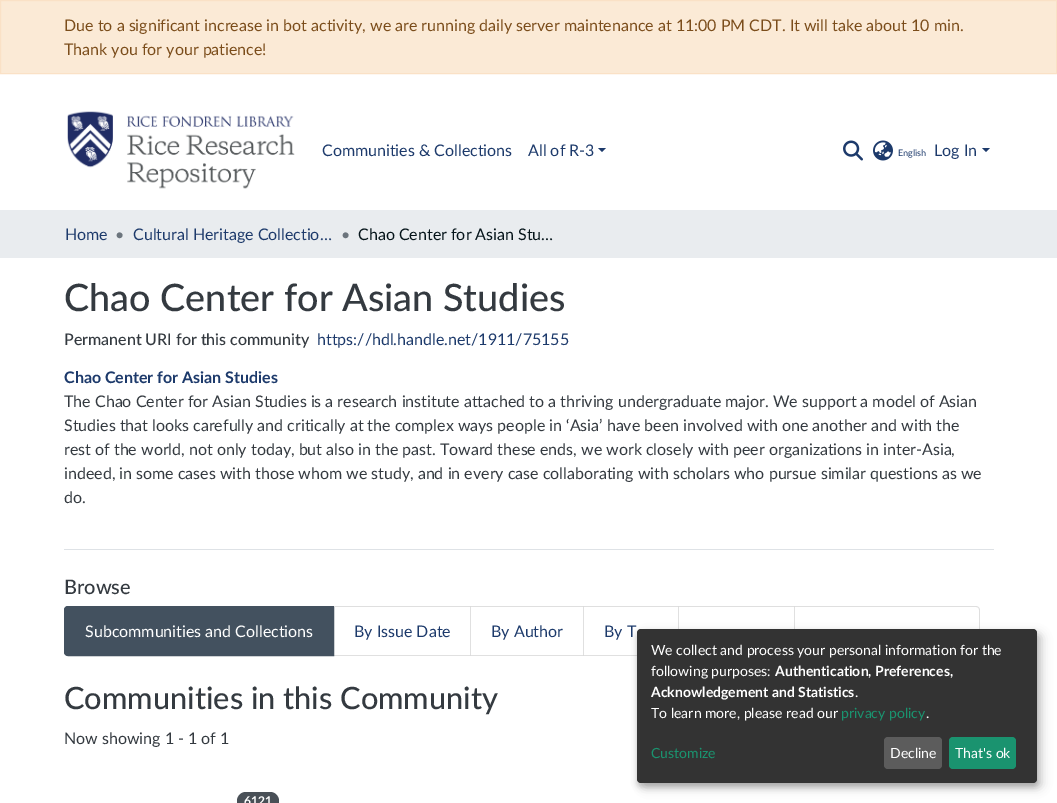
%!PS
<< /PageSize [1057 803] /PageUsesTransparency true >> setpagedevice
/m/moveto load def
/l/rlineto load def
/c/rcurveto load def
/z/closepath load def
/f/fill load def
/s/stroke load def
/q/gsave load def
/Q_/grestore load def
/C { dup -16 bitshift 255 div exch dup -8 bitshift 255 and 255 div exch 255 and 255 div setrgbcolor } def
/F { [ exch dup neg 0 0 3 -1 roll 0 0 ] selectfont } def
/T { moveto show } def
/R { rectfill } def
/A { dup .setfillconstantalpha .setstrokeconstantalpha } def
/Q { 5 dict begin { /r /h /w /y /x } { exch def } forall
  x r add y moveto x w add y 2 copy h add r arct x w add y h add x 1 index r arct
  x y h add x y r arct x y 2 copy exch w add exch r arct closepath end } def
/S { 12 dict begin { /a /b /q /h /w /y /x } { exch def } forall gsave /was 0 def
  9 -2 -9 { dup b mul 4 div /e exch def 1 sub .425 mul 2.718 exch exp 1 add a .99 .min exch div /now exch def
    1 1 now sub 1 was sub div sub A /was now def
    w h .min e 2 mul add 0 gt { x e sub y e sub w e 2 mul add h e 2 mul add
      q e add b .6 mul add w h .min 2 div e add .min 0 .max Q fill } if } for grestore end } def
/I { 5 dict begin { /h /w /y /x /name } { exch def } forall
  gsave x y translate w h scale
  w h 8 [w 0 0 h 0 0] name (r) file false 3 colorimage grestore end } def
0 .pushpdf14devicefilter
0 803 translate 1 -1 scale
4 setmiterlimit
16#FFFFFF C
0 0 1057 803 R
16#FBEAD6 C
.5 .5 m 1056 0 l 0 73 l -1056 0 l z q f Q_
16#FAE1C6 C
s
/Lato-Regular 16 F
16#7B4D1B C
(Due to a significant increase in bot activity, we are running daily server maintenance at 11:00 PM CDT. It will take about 10 min.) 64 31 T
(Thank you for your patience!) 64 55 T
(1.rgb) 67 111 228 78 I
16#1D3A6B C
(Communities & Collections) 322 156 T
(All of R-3) 528 156 T
598 148 m 8 0 l -4 4 l z f
(2.rgb) 843 140 20 21 I
(3.rgb) 873 140 20 21 I
/Lato-Regular 9 F
(English) 898 156 T
/Lato-Regular 16 F
(Log In) 934 156 T
982 148 m 8 0 l -4 4 l z f
16#E9ECEF C
0 210 1057 48 R
16#1D3A6B C
(Home) 65 240 T
16#6C757D C
(•) 115 240 T
16#1D3A6B C
(Cultural Heritage Collectio…) 133 240 T
16#6C757D C
(•) 341 240 T
16#05141A C
(Chao Center for Asian Stu…) 358 240 T
16#DEE2E6 C
64 549 930 1 R
/Lato-Medium 37.8 F
16#343A40 C
(Chao Center for Asian Studies) 64 311 T
/Lato-Medium 16 F
(Permanent URI for this community) 64 345 T
/Lato-Regular 16 F
16#1D3A6B C
(https://hdl.handle.net/1911/75155) 317 345 T
/Lato-Bold 16 F
(Chao Center for Asian Studies) 64 383 T
/Lato-Regular 16 F
16#343A40 C
(The Chao Center for Asian Studies is a research institute attached to a thriving undergraduate major. We support a model of Asian) 64 407 T
(Studies that looks carefully and critically at the complex ways people in ‘Asia’ have been involved with one another and with the) 64 431 T
(rest of the world, not only today, but also in the past. Toward these ends, we work closely with peer organizations in inter-Asia,) 64 455 T
(indeed, in some cases with those whom we study, and in every case collaborating with scholars who pursue similar questions as we) 64 479 T
(do.) 64 503 T
/Lato-Medium 20 F
(Browse) 64 594 T
16#43515F C
68 606.5 m 265.5 0 l 0 49 l -265.5 0 l -2 0 -3.5 -1.5 -3.5 -3.5 c 0 -42 l 0 -2 1.5 -3.5 3.5 -3.5 c z q f Q_
s
/Lato-Regular 16 F
16#FFFFFF C
(Subcommunities and Collections) 85 637 T
16#DFDFDF C
334 606 m 137 0 l -1 1 l -136 0 l z f
0.12 A
16#000000 C
471 606 m 0 50 l -1 -1 l 0 -48 l z f
471 656 m -137 0 l 0 -1 l 136 0 l z f
1 A
16#1D3A6B C
(By Issue Date) 354 637 T
16#DFDFDF C
471 606 m 113 0 l -1 1 l -112 0 l z f
0.12 A
16#000000 C
584 606 m 0 50 l -1 -1 l 0 -48 l z f
584 656 m -113 0 l 0 -1 l 112 0 l z f
1 A
16#1D3A6B C
(By Author) 491 637 T
16#DFDFDF C
584 606 m 95 0 l -1 1 l -94 0 l z f
0.12 A
16#000000 C
679 606 m 0 50 l -1 -1 l 0 -48 l z f
679 656 m -95 0 l 0 -1 l 94 0 l z f
1 A
16#1D3A6B C
(By T) 604 637 T
16#DFDFDF C
679 606 m 116 0 l -1 1 l -115 0 l z f
0.12 A
16#000000 C
795 606 m 0 50 l -1 -1 l 0 -48 l z f
1 A
16#DFDFDF C
795 606 m 181 0 l 2 0 4 2 4 4 c 0 42 l 0 2 -2 4 -4 4 c -181 0 l z 795 607 m 181 0 l 2 0 3 1 3 3 c 0 42 l 0 2 -1 3 -3 3 c -181 0 l z eofill
/Lato-Medium 30.75 F
16#343A40 C
(Communities in this Community) 64 709 T
/Lato-Regular 16 F
(Now showing 1 - 1 of 1) 64 744 T
16#495057 C
237 792 42 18 9 Q f
/Lato-Bold 12 F
16#FFFFFF C
(6121) 244 805 T
16#000000 C
642 634 400 154 4 5 .19 S
637 633 400 154 4 3 .2 S
16#333333 C
637 629 400 154 4 Q f
/Lato-Regular 14 F
16#FFFFFF C
(We collect and process your personal information for the) 651 655 T
(following purposes:) 651 676 T
/Lato-Bold 14 F
(Authentication, Preferences,) 775 676 T
(Acknowledgement and Statistics) 651 697 T
/Lato-Regular 14 F
(.) 855 697 T
(To learn more, please read our) 651 718 T
16#1A936F C
(privacy policy) 841 718 T
16#FFFFFF C
(.) 926 718 T
16#1A936F C
(Customize) 651 758 T
16#5C5C5C C
884 737 58 32 4 Q f
16#FFFFFF C
(Decline) 890 758 T
16#1A936F C
949 737 67 32 4 Q f
16#FFFFFF C
(That's ok) 955 758 T
.poppdf14devicefilter showpage
